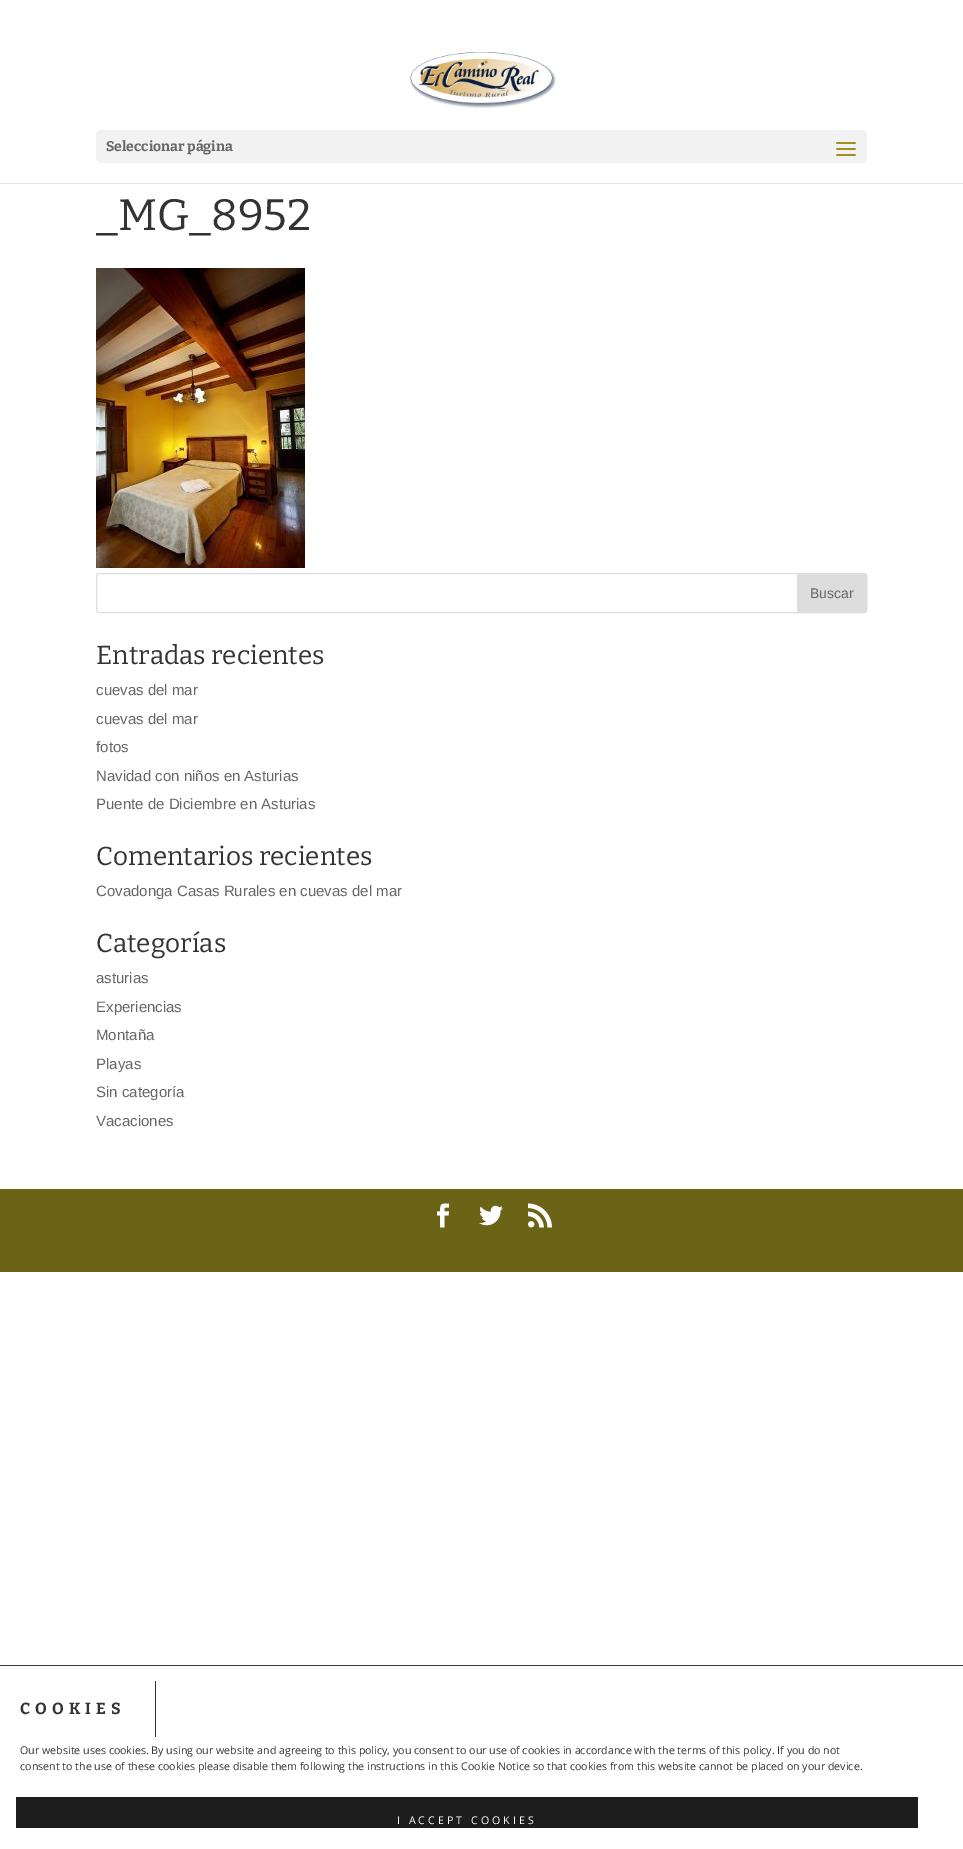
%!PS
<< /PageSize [963 1849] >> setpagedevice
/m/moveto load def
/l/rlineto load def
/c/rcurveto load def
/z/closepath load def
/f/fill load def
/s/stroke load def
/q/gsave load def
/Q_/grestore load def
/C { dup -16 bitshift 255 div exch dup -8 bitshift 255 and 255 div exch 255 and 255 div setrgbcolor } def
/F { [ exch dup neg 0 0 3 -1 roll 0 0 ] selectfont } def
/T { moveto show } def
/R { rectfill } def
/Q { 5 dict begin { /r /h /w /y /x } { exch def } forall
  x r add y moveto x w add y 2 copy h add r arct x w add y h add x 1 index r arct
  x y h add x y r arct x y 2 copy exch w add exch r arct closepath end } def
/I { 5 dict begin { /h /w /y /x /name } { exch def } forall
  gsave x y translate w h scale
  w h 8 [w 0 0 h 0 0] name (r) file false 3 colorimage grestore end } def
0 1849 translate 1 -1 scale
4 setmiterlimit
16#FFFFFF C
0 0 963 1849 R
16#E6E6E6 C
0 183 963 1 R
(1.rgb) 409 51 147 58 I
16#F2F2F2 C
96 130 771 33 5 Q f
/Bitter-Bold 14 F
16#666666 C
(Seleccionar página) 106 151 T
(2.rgb) 836 142 20 14 I
/Bitter-Regular 44 F
16#333333 C
(_MG_8952) 96 230 T
(3.rgb) 96 268 209 300 I
16#DDDDDD C
96.5 573.5 770 39 2.5 Q s
797.5 573.5 m 66.5 0 l 1.5 0 2.5 1 2.5 2.5 c 0 34 l 0 1.5 -1 2.5 -2.5 2.5 c -66.5 0 l z q f Q_
s
/LiberationSans-Regular 14 F
16#666666 C
(Buscar) 810 598 T
/Bitter-Regular 26 F
16#333333 C
(Entradas recientes) 96 664 T
/LiberationSans-Regular 15 F
16#666666 C
(cuevas del mar) 96 695 T
(cuevas del mar) 96 724 T
(fotos) 96 752 T
(Navidad con niños en Asturias) 96 781 T
(Puente de Diciembre en Asturias) 96 809 T
/Bitter-Regular 26 F
16#333333 C
(Comentarios recientes) 96 865 T
/LiberationSans-Regular 15 F
16#666666 C
(Covadonga Casas Rurales en cuevas del mar) 96 896 T
/Bitter-Regular 26 F
16#333333 C
(Categorías) 96 952 T
/LiberationSans-Regular 15 F
16#666666 C
(asturias) 96 983 T
(Experiencias) 96 1012 T
(Montaña) 96 1040 T
(Playas) 96 1069 T
(Sin categoría) 96 1097 T
(Vacaciones) 96 1126 T
16#6B6316 C
0 1189 963 83 R
(4.rgb) 437 1203 13 25 I
(5.rgb) 479 1205 24 21 I
(6.rgb) 528 1203 24 25 I
16#3B3939 C
0 1665 963 1 R
16#333333 C
155 1681 1 56 R
/Bitter-Bold 16 F
20 1714 m 5 0 (COOKIES) ashow
/OpenSans-Regular 10.67 F
(Our website uses cookies. By using our website and agreeing to this policy, you consent to our use of cookies in accordance with the terms of this policy. If you do not) 20 1754 T
(consent to the use of these cookies please disable them following the instructions in this Cookie Notice so that cookies from this website cannot be placed on your device.) 20 1770 T
16#1D1D1D C
16 1797 902 31 R
16#FFFFFF C
397 1824 m 3 0 (I ACCEPT COOKIES) ashow
showpage
